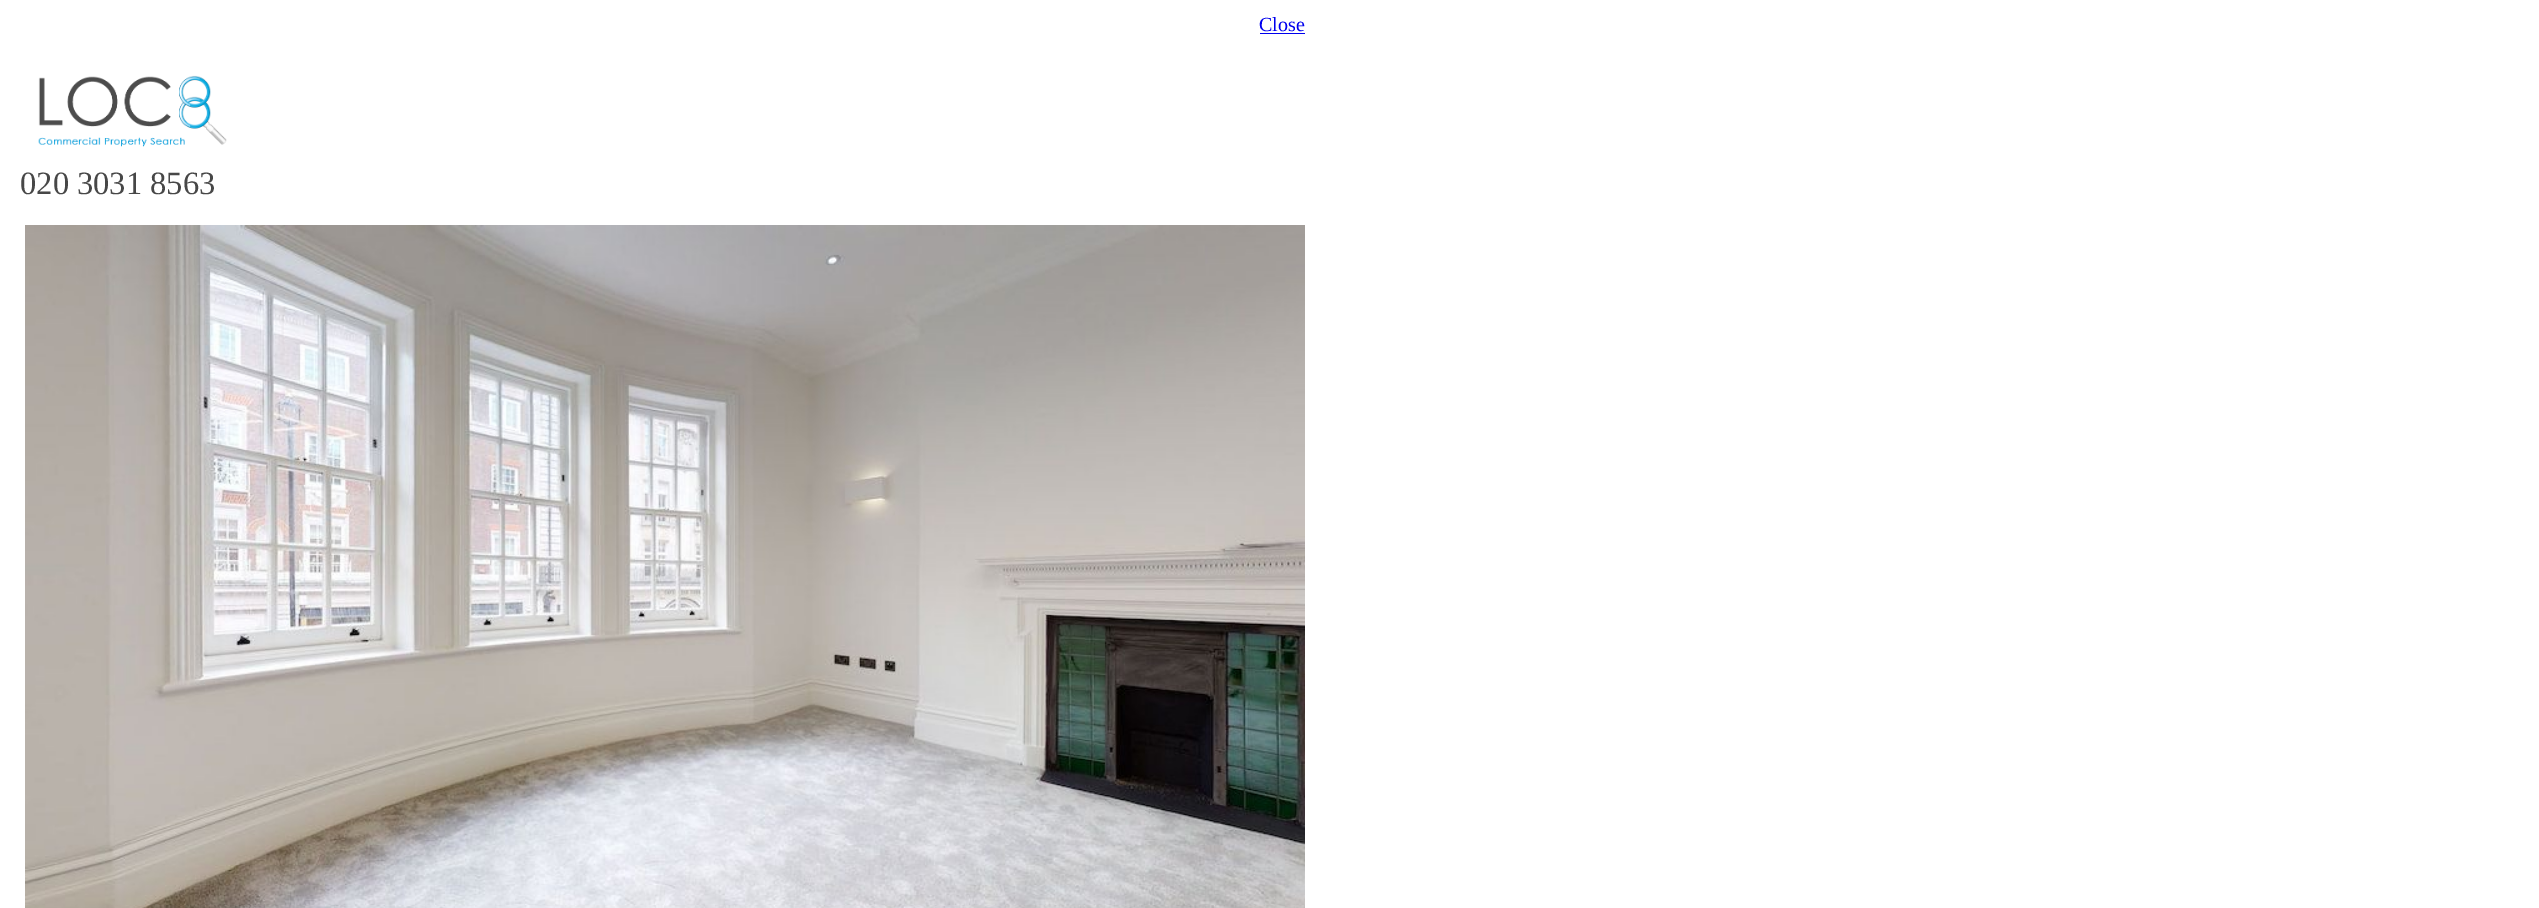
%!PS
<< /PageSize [2539 908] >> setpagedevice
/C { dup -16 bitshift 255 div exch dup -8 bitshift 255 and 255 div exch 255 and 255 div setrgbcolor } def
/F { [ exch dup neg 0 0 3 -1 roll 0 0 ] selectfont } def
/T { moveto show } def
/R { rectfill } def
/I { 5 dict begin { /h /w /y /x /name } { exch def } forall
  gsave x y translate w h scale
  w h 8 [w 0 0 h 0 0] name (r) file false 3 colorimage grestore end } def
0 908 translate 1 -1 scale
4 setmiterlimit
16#FFFFFF C
0 0 2539 908 R
/LiberationSerif-Regular 20 F
16#0000EE C
(Close) 1259 31 T
1260 33 45 1 R
(1.rgb) 38 75 189 72 I
/LiberationSerif-Regular 32.5 F
16#474747 C
(020 3031 8563) 20 194 T
(2.rgb) 25 225 1280 683 I
showpage
